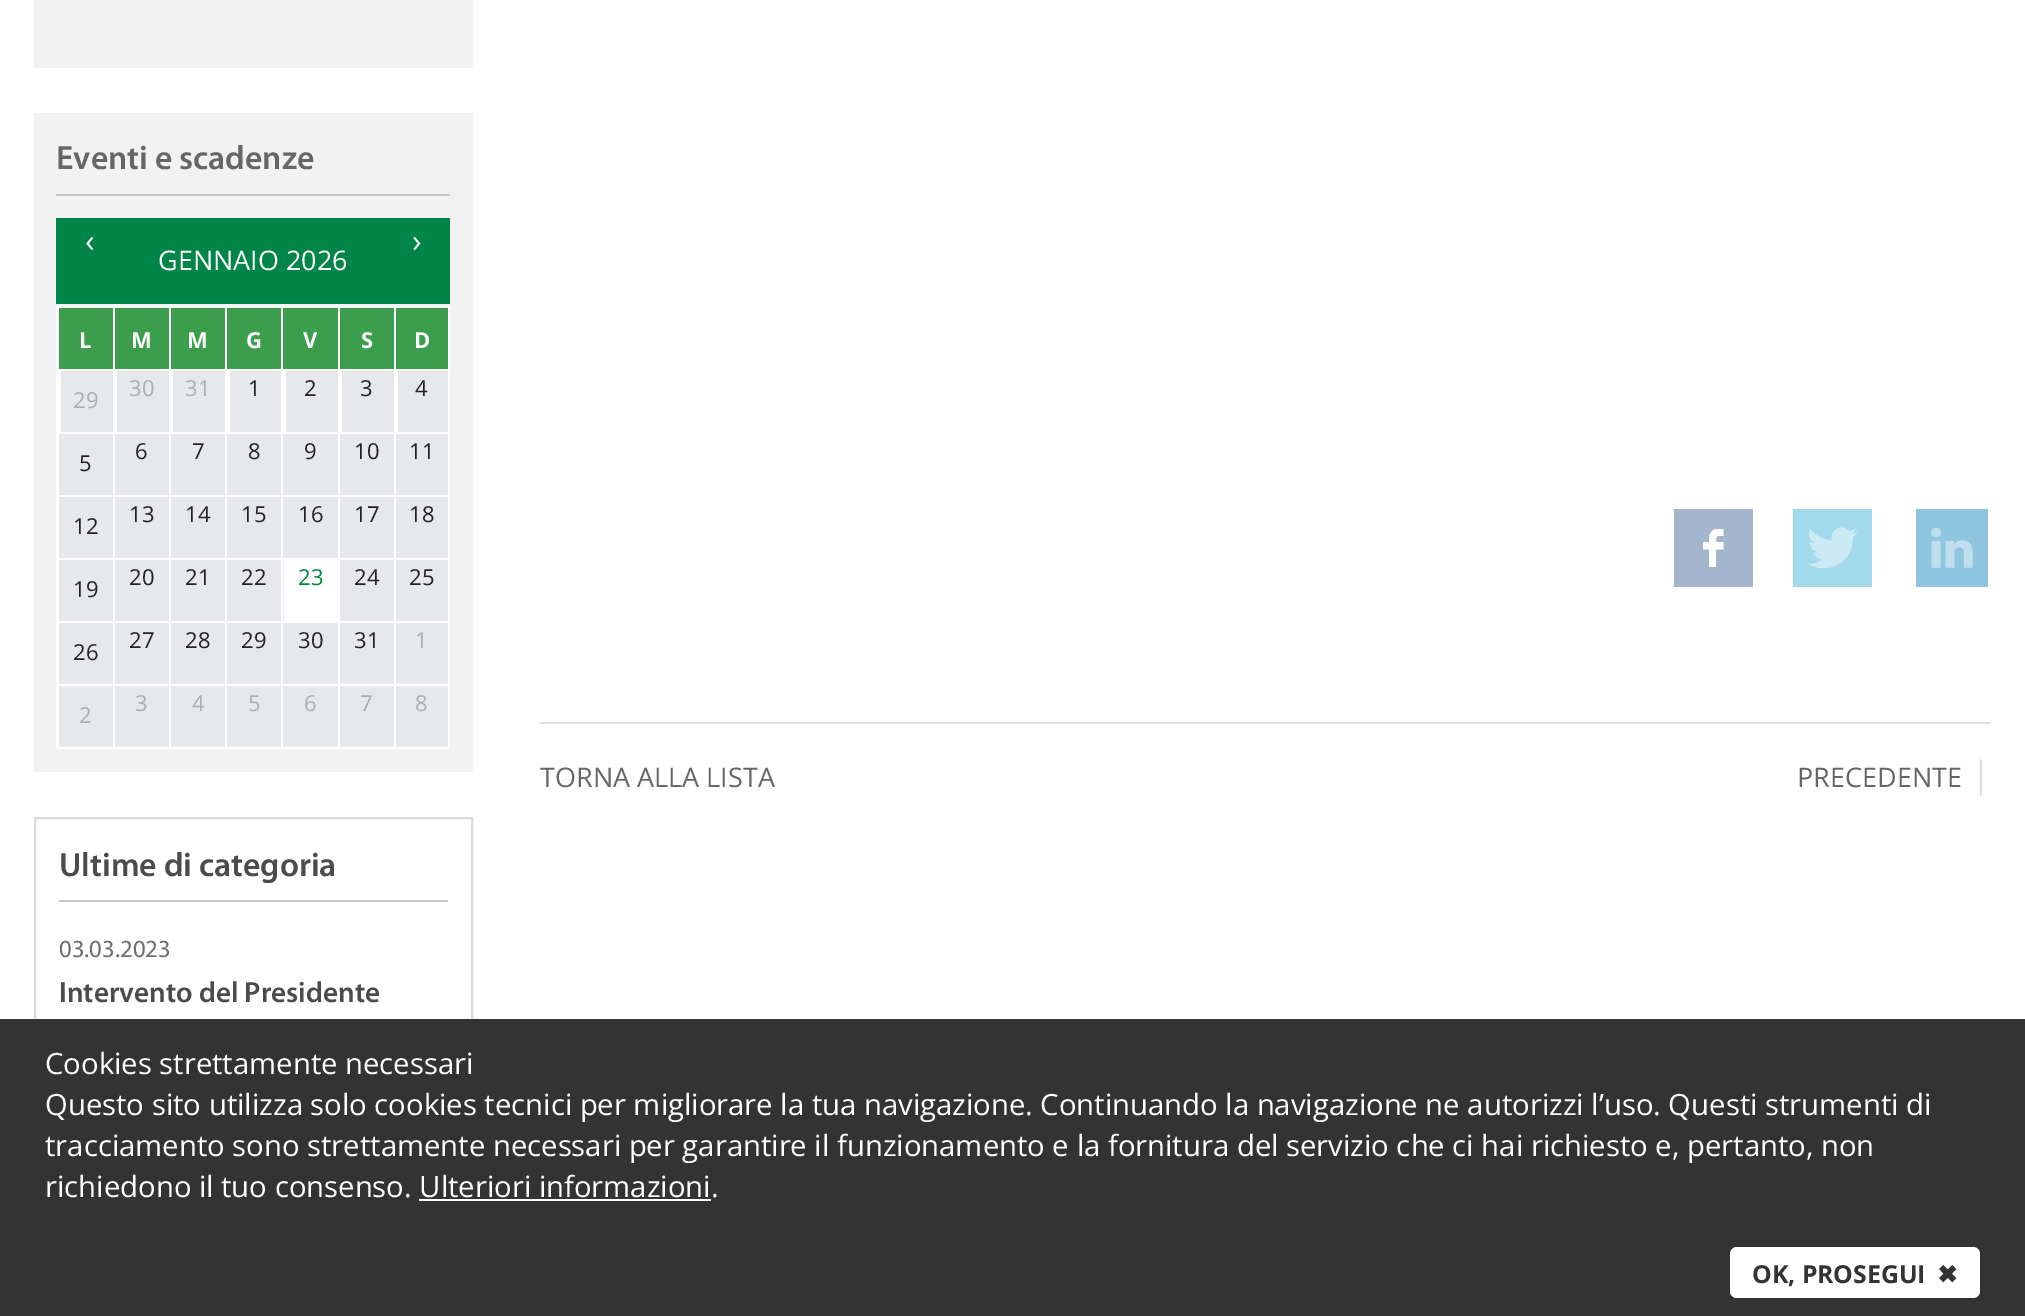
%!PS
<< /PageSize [2025 1316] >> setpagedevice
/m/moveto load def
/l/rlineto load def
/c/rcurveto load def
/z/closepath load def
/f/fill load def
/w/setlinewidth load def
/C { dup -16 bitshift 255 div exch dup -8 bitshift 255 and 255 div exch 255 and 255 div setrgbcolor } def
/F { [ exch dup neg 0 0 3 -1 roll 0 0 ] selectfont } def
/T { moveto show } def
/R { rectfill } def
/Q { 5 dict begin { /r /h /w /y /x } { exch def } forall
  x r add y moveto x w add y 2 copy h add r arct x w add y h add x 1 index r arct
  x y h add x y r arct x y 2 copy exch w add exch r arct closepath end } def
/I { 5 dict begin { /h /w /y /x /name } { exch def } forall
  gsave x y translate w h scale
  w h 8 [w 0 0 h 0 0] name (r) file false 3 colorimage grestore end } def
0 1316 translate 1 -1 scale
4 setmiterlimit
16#FFFFFF C
0 0 2025 1316 R
16#F2F2F2 C
34 0 439 68 R
34 113 439 659 R
16#C6C7C8 C
56 194 394 2 R
/Myriad-SemiBold 33.75 F
16#666666 C
(Eventi e scadenze) 56 169 T
16#008548 C
56 218 394 86 R
/OpenSans-Regular 32 F
16#FFFFFF C
(‹) 85 252 T
(›) 412 252 T
/OpenSans-Regular 27 F
(GENNAIO 2026) 158 270 T
56 306 392 441 R
16#3C9E4D C
59 308 54 61 R
/OpenSans-Bold 22 F
16#FFFFFF C
(L) 79 348 T
16#3C9E4D C
115 308 54 61 R
16#FFFFFF C
(M) 131 348 T
16#3C9E4D C
171 308 54 61 R
16#FFFFFF C
(M) 187 348 T
16#3C9E4D C
227 308 111 61 R
16#FFFFFF C
(G) 246 348 T
281 306 2 65 R
(V) 303 348 T
16#3C9E4D C
340 308 54 61 R
16#FFFFFF C
(S) 361 348 T
16#3C9E4D C
396 308 52 61 R
16#FFFFFF C
(D) 414 348 T
16#E6E8EB C
117 371 52 61 R
/OpenSans-Regular 22 F
16#ABADAF C
(30) 129 396 T
16#E6E8EB C
173 371 52 61 R
16#ABADAF C
(31) 185 396 T
16#E6E8EB C
230 371 51 61 R
16#222222 C
(1) 248 396 T
16#E6E8EB C
286 371 52 61 R
16#222222 C
(2) 304 396 T
16#E6E8EB C
342 371 52 61 R
16#222222 C
(3) 360 396 T
16#E6E8EB C
398 371 50 61 R
16#222222 C
(4) 415 396 T
16#E6E8EB C
61 371 52 61 R
16#ABADAF C
(29) 73 408 T
16#E6E8EB C
115 434 54 61 R
16#222222 C
(6) 135 459 T
16#E6E8EB C
171 434 54 61 R
16#222222 C
(7) 192 459 T
16#E6E8EB C
227 434 111 61 R
16#222222 C
(8) 248 459 T
(9) 304 459 T
16#E6E8EB C
340 434 54 61 R
16#222222 C
(10) 354 459 T
16#E6E8EB C
396 434 52 61 R
16#222222 C
(11) 409 459 T
16#E6E8EB C
59 434 54 61 R
16#222222 C
(5) 79 471 T
16#E6E8EB C
115 497 54 61 R
16#222222 C
(13) 129 522 T
16#E6E8EB C
171 497 54 61 R
16#222222 C
(14) 185 522 T
16#E6E8EB C
227 497 111 61 R
16#222222 C
(15) 241 522 T
(16) 298 522 T
16#E6E8EB C
340 497 54 61 R
16#222222 C
(17) 354 522 T
16#E6E8EB C
396 497 52 61 R
16#FFFFFF C
448 684 2 65 R
448 621 2 65 R
448 558 2 65 R
448 306 2 254 R
16#222222 C
(18) 409 522 T
16#E6E8EB C
59 497 54 61 R
16#222222 C
(12) 73 534 T
16#E6E8EB C
115 560 54 61 R
16#222222 C
(20) 129 585 T
16#E6E8EB C
171 560 54 61 R
16#222222 C
(21) 185 585 T
16#E6E8EB C
227 560 57 61 R
16#222222 C
(22) 241 585 T
16#00853E C
(23) 298 585 T
16#E6E8EB C
340 560 54 61 R
16#222222 C
(24) 354 585 T
16#E6E8EB C
396 560 52 61 R
16#222222 C
(25) 409 585 T
16#E6E8EB C
59 560 54 61 R
16#222222 C
(19) 73 597 T
16#E6E8EB C
115 623 54 61 R
16#222222 C
(27) 129 648 T
16#E6E8EB C
171 623 54 61 R
16#222222 C
(28) 185 648 T
16#E6E8EB C
227 623 111 61 R
16#222222 C
(29) 241 648 T
(30) 298 648 T
16#E6E8EB C
340 623 54 61 R
16#222222 C
(31) 354 648 T
16#E6E8EB C
396 623 52 61 R
16#ABADAF C
(1) 415 648 T
16#E6E8EB C
59 623 54 61 R
16#222222 C
(26) 73 660 T
16#E6E8EB C
115 686 54 61 R
16#ABADAF C
(3) 135 711 T
16#E6E8EB C
171 686 54 61 R
16#ABADAF C
(4) 192 711 T
16#E6E8EB C
227 686 111 61 R
16#FFFFFF C
281 747 169 2 R
281 432 2 317 R
56 747 228 2 R
16#ABADAF C
(5) 248 711 T
(6) 304 711 T
16#E6E8EB C
340 686 54 61 R
16#ABADAF C
(7) 360 711 T
16#E6E8EB C
396 686 52 61 R
16#ABADAF C
(8) 415 711 T
16#E6E8EB C
59 686 54 61 R
16#ABADAF C
(2) 79 723 T
16#DBDBDB C
2 w
35 818 437 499 rectstroke
16#C6C7C8 C
59 900 389 2 R
/Myriad-SemiBold 33.75 F
16#4B4B4B C
(Ultime di categoria) 59 876 T
/Myriad-Regular 24.75 F
16#6F6F6F C
(03.03.2023) 59 957 T
/Myriad-SemiBold 29.25 F
16#4B4B4B C
(Intervento del Presidente) 59 1002 T
16#A4B6CE C
1674 509 79 78 R
16#FFFFFF C
1703 542 m 6 0 l 0 -5.5 .5 -11.5 7 -13 c 7.5 0 l 0 7 l -7 0 -7.5 -1.5 -7.5 6 c 7.5 0 l 0 7.5 l -7.5 0 l 0 17.5 l -7 0 l 0 -17.5 l -6 0 l z f
(1.rgb) 1793 509 79 78 I
(2.rgb) 1916 509 72 78 I
16#DEDEDE C
540 722 1451 2 R
/OpenSans-Regular 27 F
16#666666 C
(TORNA ALLA LISTA) 540 787 T
(PRECEDENTE) 1797 787 T
/OpenSans-Regular 36 F
16#DEDEDE C
(|) 1971 787 T
16#333333 C
0 1019 2025 297 R
/OpenSans-Regular 29.25 F
16#FFFFFF C
(Cookies strettamente necessari) 45 1074 T
(Questo sito utilizza solo cookies tecnici per migliorare la tua navigazione. Continuando la navigazione ne autorizzi l’uso. Questi strumenti di) 45 1115 T
(tracciamento sono strettamente necessari per garantire il funzionamento e la fornitura del servizio che ci hai richiesto e, pertanto, non) 45 1156 T
(richiedono il tuo consenso. Ulteriori informazioni.) 45 1197 T
419 1199 292 2 R
1730 1247 250 51 7 Q f
/OpenSans-Bold 24.75 F
16#333333 C
(OK, PROSEGUI) 1752 1283 T
/DejaVuSans-Bold 24.75 F
(✖) 1937 1283 T
showpage
